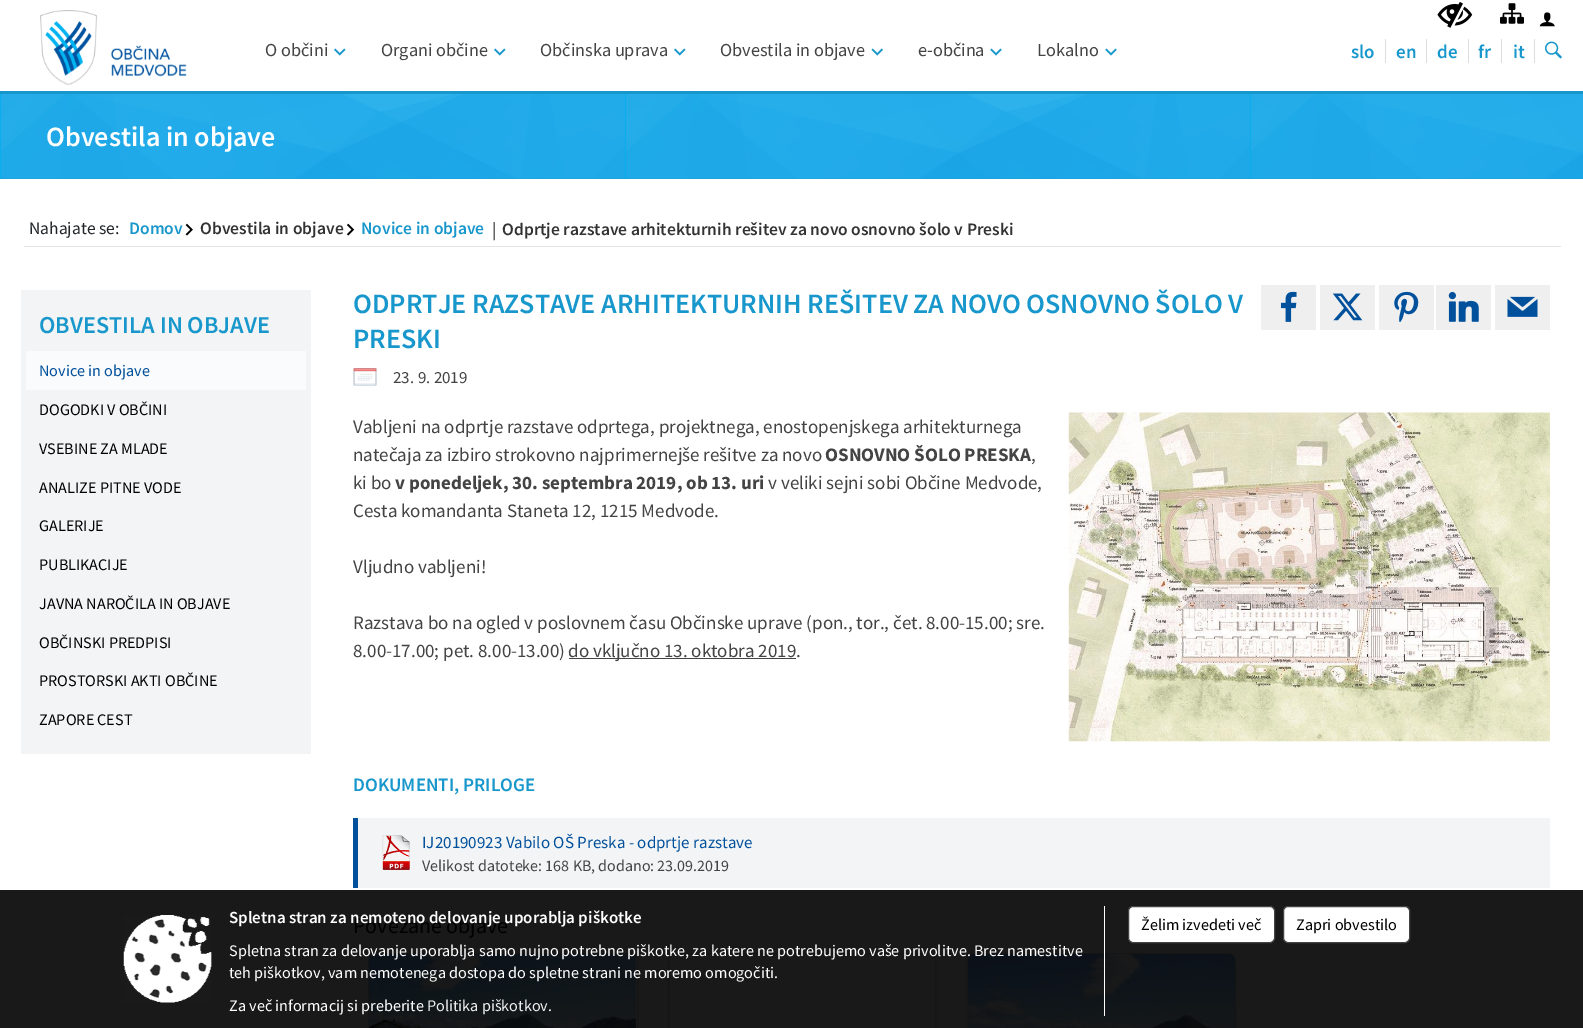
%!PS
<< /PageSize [1583 1028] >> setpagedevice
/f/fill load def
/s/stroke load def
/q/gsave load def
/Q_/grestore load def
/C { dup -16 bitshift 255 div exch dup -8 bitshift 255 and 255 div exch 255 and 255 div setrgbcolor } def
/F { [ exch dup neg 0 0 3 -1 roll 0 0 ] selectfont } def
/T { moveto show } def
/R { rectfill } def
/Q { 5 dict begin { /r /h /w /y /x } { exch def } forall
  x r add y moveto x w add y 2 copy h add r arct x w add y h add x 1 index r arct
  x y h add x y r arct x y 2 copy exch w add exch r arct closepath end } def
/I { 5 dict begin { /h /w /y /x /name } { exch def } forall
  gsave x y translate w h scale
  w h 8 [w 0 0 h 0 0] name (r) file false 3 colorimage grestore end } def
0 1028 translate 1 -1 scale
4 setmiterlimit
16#FFFFFF C
0 0 1583 1028 R
16#191919 C
0 890 1583 138 R
16#1797CB C
0 91 1583 3 R
(1.rgb) 40 10 147 75 I
/SourceSansPro-Regular 18.25 F
16#444444 C
(O občini) 265 56 T
(2.rgb) 334 48 12 8 I
(Organi občine) 381 56 T
(2.rgb) 494 48 12 8 I
(Občinska uprava) 540 56 T
(2.rgb) 674 48 12 8 I
(Obvestila in objave) 720 56 T
(3.rgb) 871 48 12 8 I
(e-občina) 918 56 T
(4.rgb) 990 48 12 8 I
(Lokalno) 1037 56 T
(4.rgb) 1105 48 12 8 I
(5.rgb) 1437 2 36 26 I
(6.rgb) 1500 3 24 21 I
(7.rgb) 1539 12 16 15 I
16#DDDDDD C
1385 39 1 24 R
/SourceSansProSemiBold-SemiBold 19 F
16#1797CB C
(slo) 1351 58 T
16#DDDDDD C
1426 39 1 24 R
16#1797CB C
(en) 1396 58 T
16#DDDDDD C
1468 39 1 24 R
16#1797CB C
(de) 1437 58 T
16#DDDDDD C
1501 39 1 24 R
16#1797CB C
(fr) 1478 58 T
16#DDDDDD C
1534 39 1 24 R
16#1797CB C
(it) 1513 58 T
(8.rgb) 1545 41 17 18 I
(9.rgb) 0 94 1583 85 I
/SourceSansProSemiBold-SemiBold 28 F
16#FFFFFF C
(Obvestila in objave) 46 146 T
16#E3E4E5 C
24 246 1537 1 R
/SourceSansPro-Regular 17.5 F
16#212529 C
(Nahajate se:) 29 234 T
/SourceSansProSemiBold-SemiBold 17.5 F
16#1797CB C
(Domov) 129 234 T
(10.rgb) 185 223 8 13 I
16#333333 C
(Obvestila in objave) 200 234 T
(11.rgb) 346 223 9 13 I
16#1797CB C
(Novice in objave) 361 234 T
/LiberationSerif-Bold 20 F
16#666666 C
(|) 492 236 T
/SourceSansProSemiBold-SemiBold 17.5 F
16#333333 C
(Odprtje razstave arhitekturnih rešitev za novo osnovno šolo v Preski) 502 235 T
16#F3F4F5 C
21 290 290 464 R
/SourceSansProSemiBold-SemiBold 24.25 F
16#1797CB C
(OBVESTILA IN OBJAVE) 39 333 T
16#FAFBFC C
26 351 280 39 R
/SourceSansPro-Regular 16.15 F
16#00509C C
(Novice in objave) 39 376 T
16#000000 C
(DOGODKI V OBČINI) 39 415 T
(VSEBINE ZA MLADE) 39 454 T
(ANALIZE PITNE VODE) 39 493 T
(GALERIJE) 39 531 T
(PUBLIKACIJE) 39 570 T
(JAVNA NAROČILA IN OBJAVE) 39 609 T
(OBČINSKI PREDPISI) 39 648 T
(PROSTORSKI AKTI OBČINE) 39 686 T
(ZAPORE CEST) 39 725 T
/SourceSansProSemiBold-SemiBold 28 F
16#1797CB C
(ODPRTJE RAZSTAVE ARHITEKTURNIH REŠITEV ZA NOVO OSNOVNO ŠOLO V) 353 313 T
(PRESKI) 353 348 T
16#EFEFEF C
1261 285 55 45 R
(12.rgb) 1280 291 17 31 I
1320 285 55 45 R
(13.rgb) 1332 293 31 28 I
1379 285 55 45 R
(14.rgb) 1394 291 25 31 I
1436 285 55 45 R
(15.rgb) 1448 291 31 31 I
1495 285 55 45 R
(16.rgb) 1507 296 31 21 I
(17.rgb) 353 368 24 18 I
/SourceSansPro-Regular 17 F
16#444444 C
(23. 9. 2019) 393 383 T
/SourceSansPro-Regular 19 F
(Vabljeni na odprtje razstave odprtega, projektnega, enostopenjskega arhitekturnega) 353 433 T
(natečaja za izbiro strokovno najprimernejše rešitve za novo) 353 461 T
/SourceSansPro-Bold 19 F
(OSNOVNO ŠOLO PRESKA) 825 461 T
/SourceSansPro-Regular 19 F
(,) 1031 461 T
(ki bo) 353 489 T
/SourceSansPro-Bold 19 F
(v ponedeljek, 30. septembra 2019, ob 13. uri) 395 489 T
/SourceSansPro-Regular 19 F
(v veliki sejni sobi Občine Medvode,) 768 489 T
(Cesta komandanta Staneta 12, 1215 Medvode.) 353 517 T
(Vljudno vabljeni!) 353 573 T
(Razstava bo na ogled v poslovnem času Občinske uprave \(pon., tor., čet. 8.00-15.00; sre.) 353 629 T
(8.00-17.00; pet. 8.00-13.00\)) 353 657 T
569 658 227 1 R
(do vključno 13. oktobra 2019.) 568 657 T
(18.rgb) 1068 412 482 330 I
/SourceSansProSemiBold-SemiBold 19 F
16#1797CB C
(DOKUMENTI, PRILOGE) 353 791 T
16#F3F4F5 C
358 818 1192 70 R
16#00509C C
353 818 5 70 R
(19.rgb) 382 835 28 35 I
/SourceSansPro-Regular 17 F
(IJ20190923 Vabilo OŠ Preska - odprtje razstave) 422 848 T
/SourceSansPro-Regular 16 F
16#444444 C
(Velikost datoteke: 168 KB, dodano: 23.09.2019) 422 871 T
/SourceSansPro-Regular 22 F
16#000000 C
(Povezane objave) 353 933 T
16#151515 C
368.5 953.5 269 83 7.5 Q s
(20.rgb) 368 953 269 75 I
668.5 953.5 267 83 7.5 Q s
966.5 953.5 269 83 7.5 Q s
(21.rgb) 967 953 268 75 I
(22.rgb) 123 915 89 88 I
16#FFFFFF C
1104 906 1 110 R
/SourceSansProSemiBold-SemiBold 17 F
(Spletna stran za nemoteno delovanje uporablja piškotke) 229 923 T
/SourceSansPro-Regular 16.15 F
(Spletna stran za delovanje uporablja samo nujno potrebne piškotke, za katere ne potrebujemo vaše privolitve. Brez namestitve) 229 956 T
(teh piškotkov, vam nemotenega dostopa do spletne strani ne moremo omogočiti.) 229 978 T
(Za več informacij si preberite) 229 1011 T
16#EEEEEE C
(Politika piškotkov) 427 1011 T
16#FFFFFF C
(.) 548 1011 T
1128.5 906.5 146 36 4.5 Q q f Q_
16#444444 C
s
16#000000 C
(Želim izvedeti več) 1141 930 T
16#FFFFFF C
1283.5 906.5 126 36 4.5 Q q f Q_
16#444444 C
s
16#000000 C
(Zapri obvestilo) 1296 930 T
showpage
